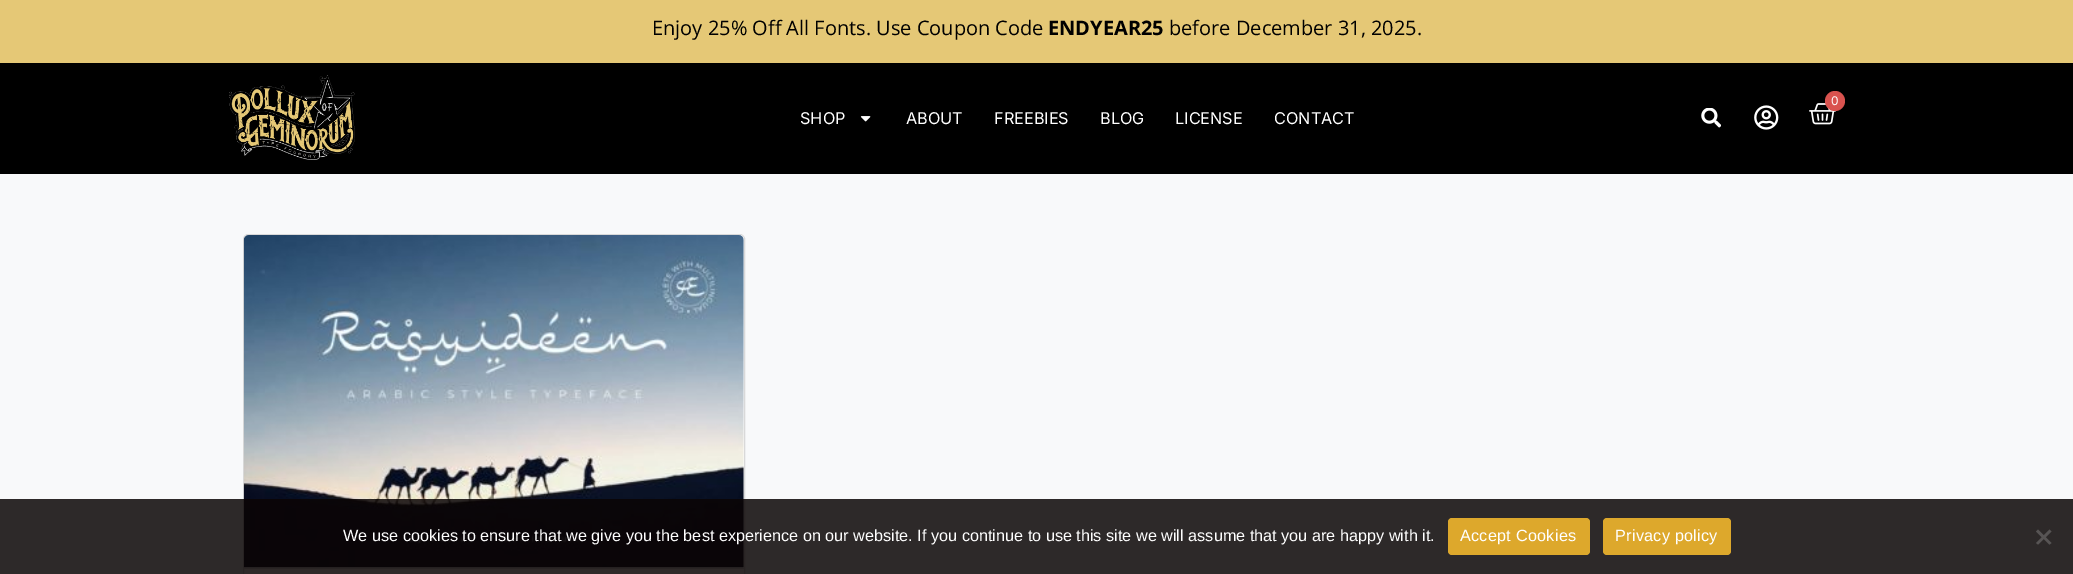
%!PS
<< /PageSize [2073 574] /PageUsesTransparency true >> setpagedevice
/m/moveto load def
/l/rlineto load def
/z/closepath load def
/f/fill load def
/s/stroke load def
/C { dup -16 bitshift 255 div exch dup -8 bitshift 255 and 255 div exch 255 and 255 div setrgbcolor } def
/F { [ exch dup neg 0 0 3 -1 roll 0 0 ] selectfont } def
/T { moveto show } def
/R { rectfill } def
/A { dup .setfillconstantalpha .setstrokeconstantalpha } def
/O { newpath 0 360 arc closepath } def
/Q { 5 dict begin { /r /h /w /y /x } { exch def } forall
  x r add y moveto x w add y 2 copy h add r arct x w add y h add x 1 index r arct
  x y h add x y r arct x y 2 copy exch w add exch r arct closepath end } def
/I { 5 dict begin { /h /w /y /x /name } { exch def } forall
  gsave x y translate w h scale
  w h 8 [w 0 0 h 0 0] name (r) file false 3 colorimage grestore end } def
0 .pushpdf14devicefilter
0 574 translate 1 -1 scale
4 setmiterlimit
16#F8F9FA C
0 0 2073 574 R
16#E5C876 C
0 0 2073 63 R
/OpenSans-Regular 20 F
16#000000 C
(Enjoy 25% Off All Fonts. Use Coupon Code) 652 35 T
/OpenSans-Bold 20 F
(ENDYEAR25) 1048 35 T
/OpenSans-Regular 20 F
(before December 31, 2025.) 1169 35 T
0 63 2073 111 R
(1.rgb) 229 75 126 85 I
(2.rgb) 1809 103 27 22 I
16#D9534F C
1835 101 10 O f
/Inter-Regular 12 F
16#FFFFFF C
(0) 1831 105 T
/Inter-Regular 16.25 F
(SHOP) 800 124 T
(3.rgb) 860 116 11 6 I
(ABOUT) 906 124 T
(FREEBIES) 994 124 T
(BLOG) 1100 124 T
(LICENSE) 1175 124 T
(CONTACT) 1274 124 T
(4.rgb) 1701 108 20 20 I
(5.rgb) 1754 105 25 25 I
243 234 502 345 5 Q f
0.15 A
16#000000 C
243.5 234.5 501 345 4.5 Q s
1 A
(6.rgb) 243 235 501 333 I
16#D9D9D9 C
244 568 500 1 R
0.85 A
16#0A0404 C
0 499 2073 75 R
/LiberationSans-Regular 16.25 F
1 A
16#FFFFFF C
(We use cookies to ensure that we give you the best experience on our website. If you continue to use this site we will assume that you are happy with it.) 343 541 T
16#DDA82C C
1448 518 142 37 4 Q f
16#FFFFFF C
1460 541 m .25 0 (Accept Cookies) ashow
16#DDA82C C
1603 518 128 37 4 Q f
16#FFFFFF C
1615 541 m .25 0 (Privacy policy) ashow
16#575454 C
2049.5 529.5 m 2 2 l -13.5 13 l -2 -1.5 l z f
2036 531.5 m 2 -2 l 13.5 13.5 l -2 1.5 l z f
.poppdf14devicefilter showpage
